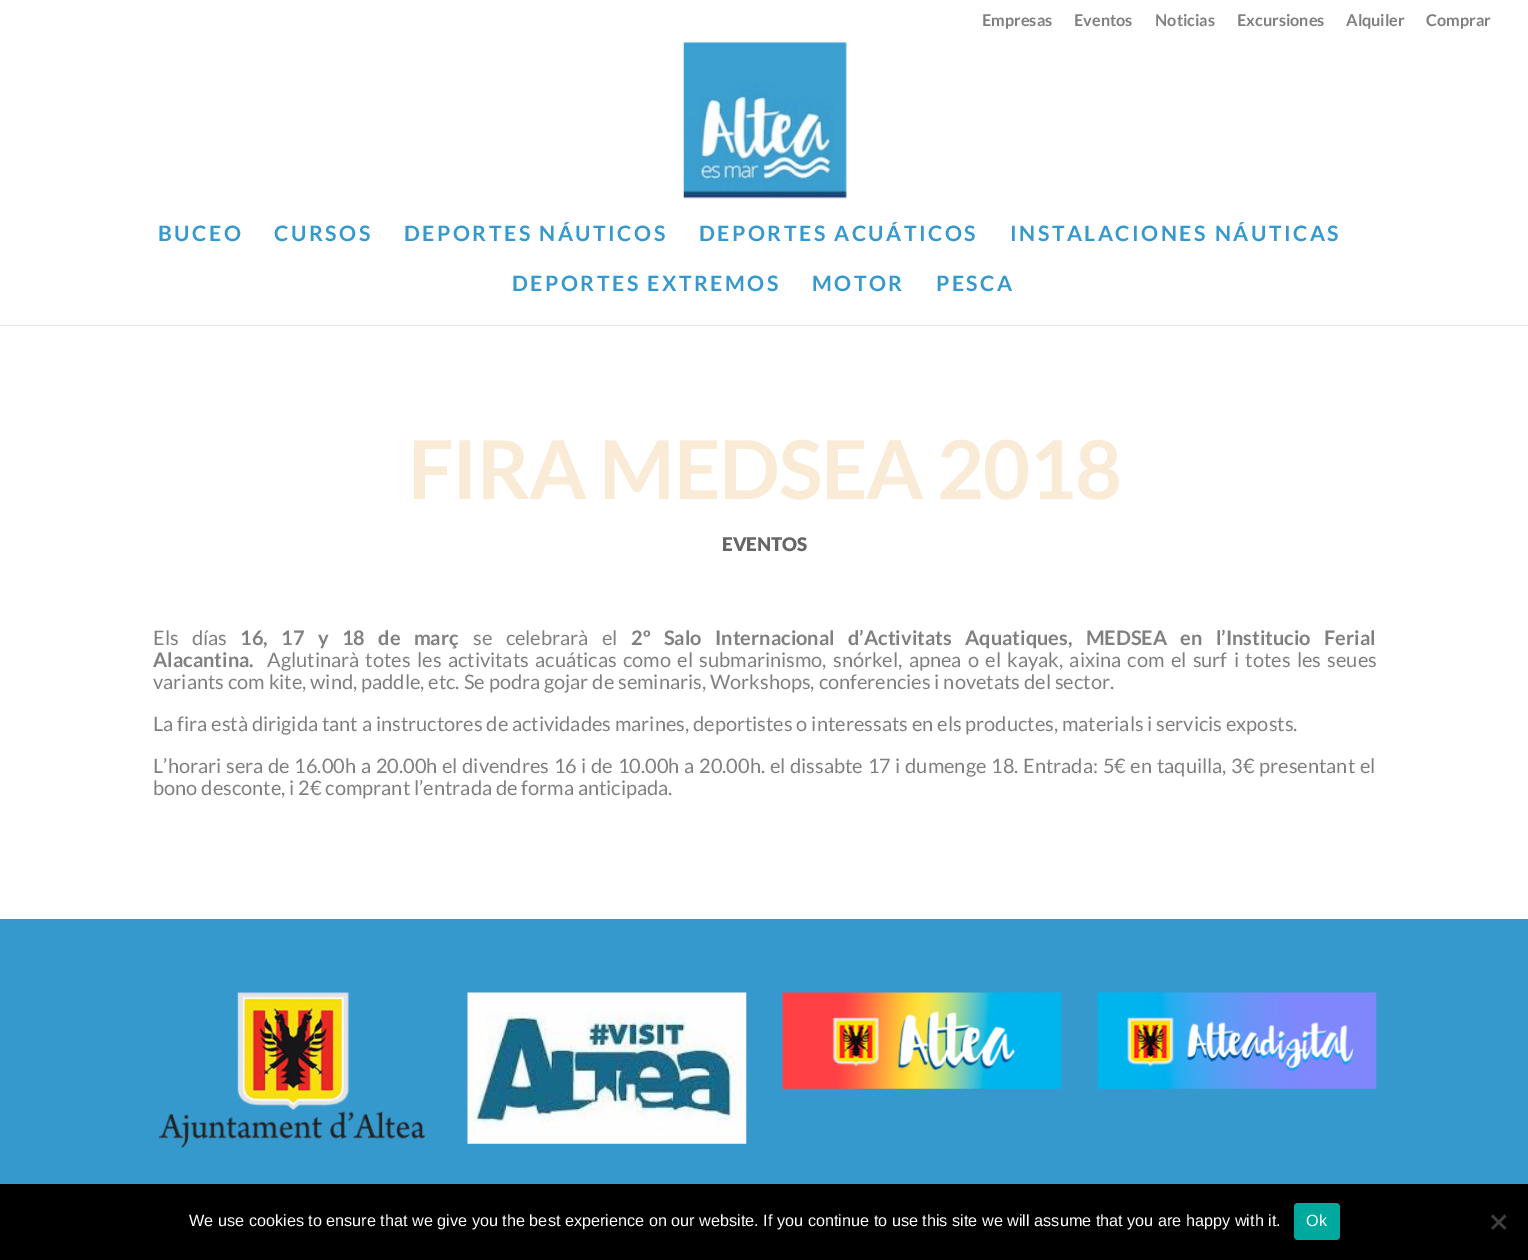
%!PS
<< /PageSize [1528 1260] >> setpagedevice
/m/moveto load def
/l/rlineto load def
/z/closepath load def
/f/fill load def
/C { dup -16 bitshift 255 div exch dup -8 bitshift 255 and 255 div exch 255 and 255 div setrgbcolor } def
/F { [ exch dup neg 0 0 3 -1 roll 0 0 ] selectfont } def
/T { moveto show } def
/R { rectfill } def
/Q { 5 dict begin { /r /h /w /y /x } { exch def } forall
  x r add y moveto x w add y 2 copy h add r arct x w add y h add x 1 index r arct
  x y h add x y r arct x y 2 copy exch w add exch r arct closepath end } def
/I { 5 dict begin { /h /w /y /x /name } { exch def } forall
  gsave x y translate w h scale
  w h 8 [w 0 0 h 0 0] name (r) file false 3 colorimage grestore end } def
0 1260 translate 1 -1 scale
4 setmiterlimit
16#FFFFFF C
0 0 1528 1260 R
/Lato-Bold 16.25 F
16#808080 C
(Empresas) 982 26 T
(Eventos) 1074 26 T
(Noticias) 1155 26 T
(Excursiones) 1237 26 T
(Alquiler) 1346 26 T
(Comprar) 1426 26 T
16#E6E6E6 C
0 325 m 0 1 l 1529 0 l 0 -283 l 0 282 l z f
(1.rgb) 683 42 164 158 I
/Lato-Bold 21.25 F
16#3699CE C
158 241 m 2.5 0 (BUCEO) ashow
274 241 m 2.5 0 (CURSOS) ashow
404 241 m 2.5 0 (DEPORTES NÁUTICOS) ashow
699 241 m 2.5 0 (DEPORTES ACUÁTICOS) ashow
1010 241 m 2.5 0 (INSTALACIONES NÁUTICAS) ashow
512 291 m 2.5 0 (DEPORTES EXTREMOS) ashow
812 291 m 2.5 0 (MOTOR) ashow
936 291 m 2.5 0 (PESCA) ashow
/Lato-Bold 81.25 F
16#FAEBD7 C
408 499 m -1.25 0 (FIRA MEDSEA 2018) ashow
/Lato-Black 18.75 F
16#666666 C
(EVENTOS) 722 551 T
/Lato-Regular 20 F
16#808080 C
153 645 m 9.5 0 32 (Els días) widthshow
/Lato-Bold 20 F
240 645 m 9.5 0 32 (16, 17 y 18 de març) widthshow
/Lato-Regular 20 F
473 645 m 9.5 0 32 (se celebrarà el) widthshow
/Lato-Bold 20 F
631 645 m 9.5 0 32 (2º Salo Internacional d’Activitats Aquatiques, MEDSEA en l’Institucio Ferial) widthshow
(Alacantina.) 153 667 T
/Lato-Regular 20 F
267 667 m 2.5 0 32 (Aglutinarà totes les activitats acuáticas como el submarinismo, snórkel, apnea o el kayak, aixina com el surf i totes les seues) widthshow
(variants com kite, wind, paddle, etc. Se podra gojar de seminaris, Workshops, conferencies i novetats del sector.) 153 689 T
(La fira està dirigida tant a instructores de actividades marines, deportistes o interessats en els productes, materials i servicis exposts.) 153 731 T
153 773 m .85 0 32 (L’horari sera de 16.00h a 20.00h el divendres 16 i de 10.00h a 20.00h. el dissabte 17 i dumenge 18. Entrada: 5€ en taquilla, 3€ presentant el) widthshow
(bono desconte, i 2€ comprant l’entrada de forma anticipada.) 153 795 T
16#3699CE C
0 919 1528 265 R
(2.rgb) 159 992 266 156 I
(3.rgb) 467 992 280 152 I
(4.rgb) 782 992 280 97 I
(5.rgb) 1097 992 280 97 I
16#000000 C
0 1184 1528 76 R
/LiberationSans-Regular 16.25 F
16#FFFFFF C
(We use cookies to ensure that we give you the best experience on our website. If you continue to use this site we will assume that you are happy with it.) 189 1226 T
16#00A99D C
1294 1203 46 37 4 Q f
16#FFFFFF C
(Ok) 1306 1226 T
16#404040 C
1504.5 1214.5 m 2 2 l -13.5 13 l -2 -1.5 l z f
1491 1216.5 m 2 -2 l 13.5 13.5 l -2 1.5 l z f
showpage
